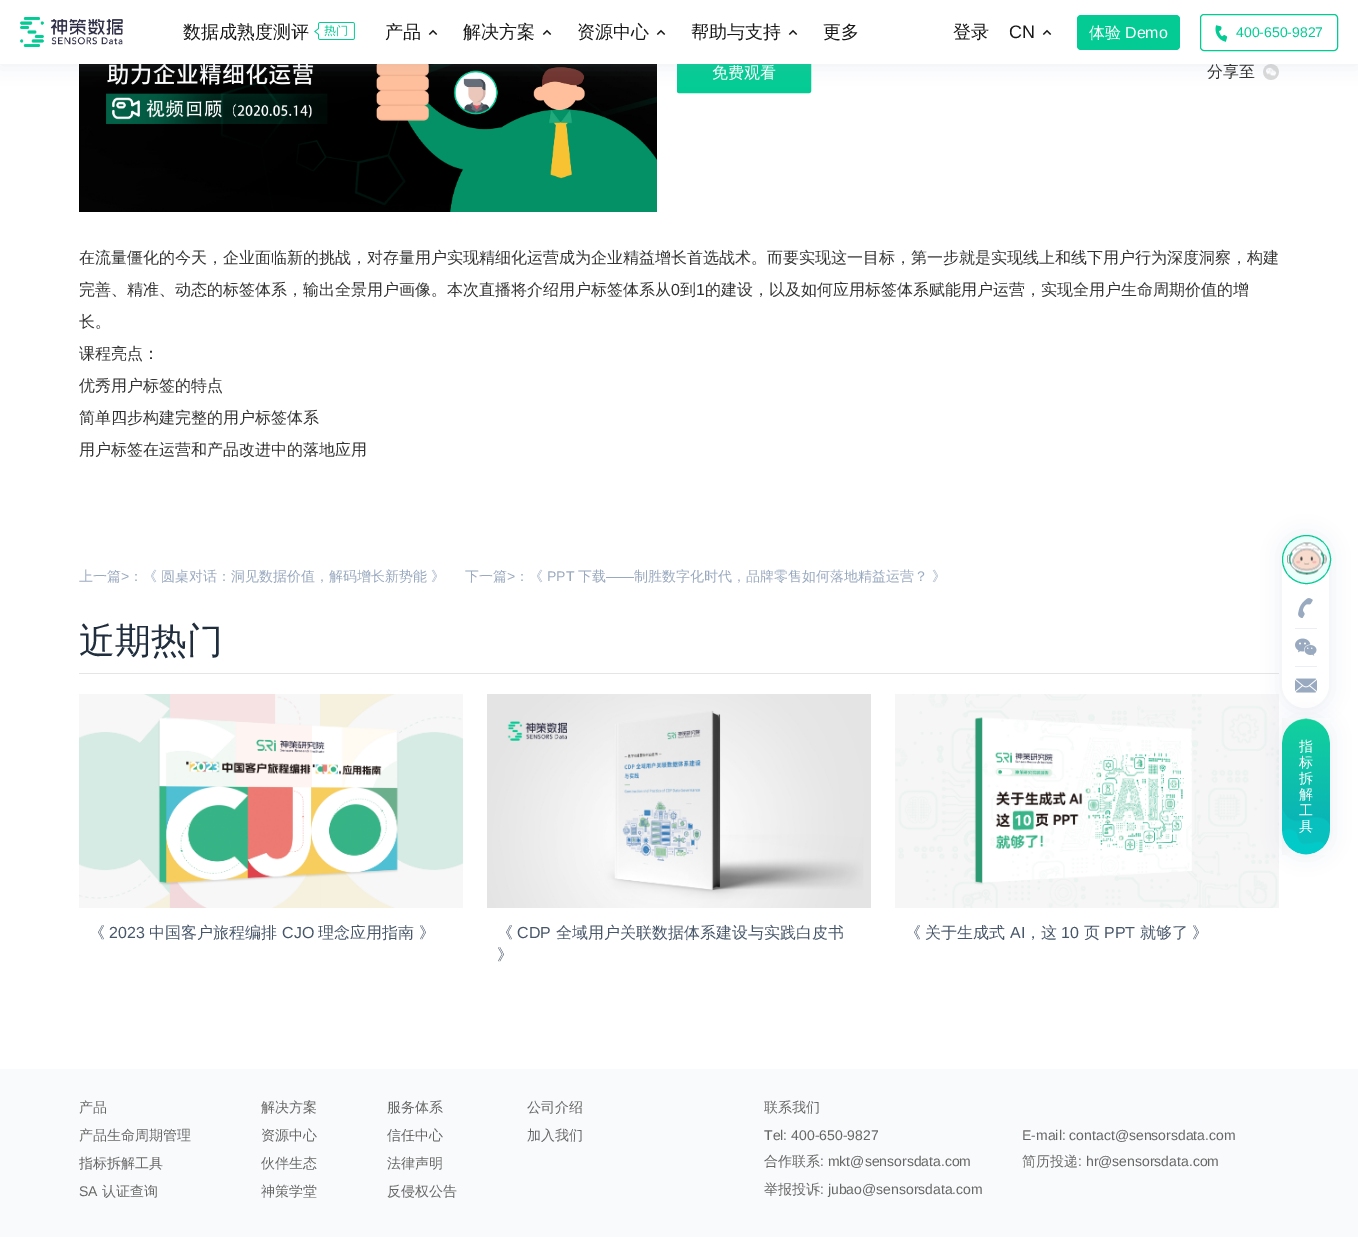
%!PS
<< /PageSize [1358 1237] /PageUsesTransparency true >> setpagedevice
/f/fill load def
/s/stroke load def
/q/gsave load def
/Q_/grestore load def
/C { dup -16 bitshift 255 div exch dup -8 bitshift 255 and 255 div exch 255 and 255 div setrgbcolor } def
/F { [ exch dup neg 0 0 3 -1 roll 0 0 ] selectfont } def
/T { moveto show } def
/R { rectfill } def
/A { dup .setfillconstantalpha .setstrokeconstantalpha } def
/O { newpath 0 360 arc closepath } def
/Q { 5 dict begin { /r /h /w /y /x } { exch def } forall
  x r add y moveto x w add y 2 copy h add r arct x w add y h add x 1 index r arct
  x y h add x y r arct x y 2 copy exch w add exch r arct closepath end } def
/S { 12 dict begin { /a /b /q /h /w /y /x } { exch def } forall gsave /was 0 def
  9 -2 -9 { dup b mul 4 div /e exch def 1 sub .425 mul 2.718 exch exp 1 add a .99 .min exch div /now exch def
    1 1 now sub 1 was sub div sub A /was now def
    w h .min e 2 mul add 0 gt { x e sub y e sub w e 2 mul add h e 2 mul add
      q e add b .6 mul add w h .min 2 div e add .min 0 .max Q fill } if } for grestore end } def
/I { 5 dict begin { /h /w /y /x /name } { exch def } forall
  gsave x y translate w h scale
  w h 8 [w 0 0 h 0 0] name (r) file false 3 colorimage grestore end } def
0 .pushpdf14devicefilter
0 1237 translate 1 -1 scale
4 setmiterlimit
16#FFFFFF C
0 0 1358 1237 R
(5.rgb) 79 64 578 148 I
16#04CB94 C
677.5 52.5 133 40 1.5 Q q f Q_
s
(6.rgb) 1263 64 16 16 I
16#99A9BF C
0 0 1358 64 0 10 .2 S
/WenQuanYiZenHei-Medium 16 F
16#333333 C
(分享至) 1207 77 T
16#FFFFFF C
0 0 1358 64 R
(1.rgb) 20 17 103 30 I
/WenQuanYiZenHei-Medium 18 F
16#181818 C
(数据成熟度测评) 183 38 T
(2.rgb) 314 22 41 18 I
(产品) 385 38 T
(3.rgb) 428 29 10 6 I
(解决方案) 463 38 T
(3.rgb) 542 29 10 6 I
(资源中心) 577 38 T
(3.rgb) 656 29 10 6 I
(帮助与支持) 691 38 T
(3.rgb) 788 29 10 6 I
(更多) 823 38 T
(登录) 953 38 T
/LiberationSans-Regular 18 F
(CN) 1009 38 T
(3.rgb) 1042 29 10 6 I
16#04CB94 C
1077 15 103 35 4 Q f
/WenQuanYiZenHei-Medium 16 F
16#FFFFFF C
(体验) 1089 38 T
/LiberationSans-Regular 16 F
(Demo) 1125 38 T
16#04CB94 C
1200.5 14.5 137 36 3.5 Q s
(4.rgb) 1215 25 13 17 I
/LiberationSans-Regular 14 F
(400-650-9827) 1236 37 T
/WenQuanYiZenHei-Medium 16 F
16#FFFFFF C
(免费观看) 712 78 T
16#333333 C
(在流量僵化的今天，企业面临新的挑战，对存量用户实现精细化运营成为企业精益增长首选战术。而要实现这一目标，第一步就是实现线上和线下用户行为深度洞察，构建) 79 263 T
(完善、精准、动态的标签体系，输出全景用户画像。本次直播将介绍用户标签体系从) 79 295 T
/LiberationSans-Regular 16 F
(0) 671 295 T
/WenQuanYiZenHei-Medium 16 F
(到) 680 295 T
/LiberationSans-Regular 16 F
(1) 696 295 T
/WenQuanYiZenHei-Medium 16 F
(的建设，以及如何应用标签体系赋能用户运营，实现全用户生命周期价值的增) 705 295 T
(长。) 79 327 T
(课程亮点：) 79 359 T
(优秀用户标签的特点) 79 391 T
(简单四步构建完整的用户标签体系) 79 423 T
(用户标签在运营和产品改进中的落地应用) 79 455 T
/WenQuanYiZenHei-Medium 14 F
16#99A9BF C
(上一篇) 79 581 T
/LiberationSans-Regular 14 F
(>) 121 581 T
/WenQuanYiZenHei-Medium 14 F
(：《 圆桌对话：洞见数据价值，解码增长新势能) 129 581 T
(》) 431 581 T
(下一篇) 465 581 T
/LiberationSans-Regular 14 F
(>) 507 581 T
/WenQuanYiZenHei-Medium 14 F
(：《) 515 581 T
/LiberationSans-Regular 14 F
(PPT) 547 581 T
/WenQuanYiZenHei-Medium 14 F
(下载) 578 581 T
/LiberationSans-Regular 14 F
(——) 606 581 T
/WenQuanYiZenHei-Medium 14 F
(制胜数字化时代，品牌零售如何落地精益运营？ 》) 634 581 T
/WenQuanYiZenHei-Medium 36 F
16#1F2D3D C
(近期热门) 79 653 T
16#E5E5E5 C
79 673 1200 1 R
(7.rgb) 79 694 384 214 I
/WenQuanYiZenHei-Medium 16 F
16#475669 C
(《) 89 938 T
/LiberationSans-Regular 16 F
(2023) 109 938 T
/WenQuanYiZenHei-Medium 16 F
(中国客户旅程编排) 149 938 T
/LiberationSans-Regular 16 F
(CJO) 282 938 T
/WenQuanYiZenHei-Medium 16 F
(理念应用指南) 318 938 T
(》) 419 938 T
(8.rgb) 487 694 384 214 I
(《) 497 938 T
/LiberationSans-Regular 16 F
(CDP) 517 938 T
/WenQuanYiZenHei-Medium 16 F
(全域用户关联数据体系建设与实践白皮书) 556 938 T
(》) 497 960 T
(9.rgb) 895 694 384 214 I
(《) 905 938 T
(关于生成式) 925 938 T
/LiberationSans-Regular 16 F
(AI) 1010 938 T
/WenQuanYiZenHei-Medium 16 F
(，这) 1025 938 T
/LiberationSans-Regular 16 F
(10) 1061 938 T
/WenQuanYiZenHei-Medium 16 F
(页) 1084 938 T
/LiberationSans-Regular 16 F
(PPT) 1104 938 T
/WenQuanYiZenHei-Medium 16 F
(就够了) 1140 938 T
(》) 1192 938 T
16#F9FAFC C
0 1069 1358 168 R
/WenQuanYiZenHei-Medium 14 F
16#666666 C
(产品) 79 1112 T
(产品生命周期管理) 79 1140 T
(指标拆解工具) 79 1168 T
/LiberationSans-Regular 14 F
(SA) 79 1196 T
/WenQuanYiZenHei-Medium 14 F
(认证查询) 102 1196 T
(解决方案) 261 1112 T
(资源中心) 261 1140 T
(伙伴生态) 261 1168 T
(神策学堂) 261 1196 T
(服务体系) 387 1112 T
(信任中心) 387 1140 T
(法律声明) 387 1168 T
(反侵权公告) 387 1196 T
(公司介绍) 527 1112 T
(加入我们) 527 1140 T
(联系我们) 764 1112 T
/LiberationSans-Regular 14 F
(Tel: 400-650-9827) 764 1140 T
(E-mail: contact@sensorsdata.com) 1022 1140 T
/WenQuanYiZenHei-Medium 14 F
(合作联系) 764 1166 T
/LiberationSans-Regular 14 F
(: mkt@sensorsdata.com) 820 1166 T
/WenQuanYiZenHei-Medium 14 F
(简历投递) 1022 1166 T
/LiberationSans-Regular 14 F
(: hr@sensorsdata.com) 1078 1166 T
/WenQuanYiZenHei-Medium 14 F
(举报投诉) 764 1194 T
/LiberationSans-Regular 14 F
(: jubao@sensorsdata.com) 820 1194 T
16#99A9BF C
1282 536 47 172 23.5 10 .2 S
16#FFFFFF C
1282 536 47 172 23.5 Q f
16#ECFFFA C
1306.5 559.5 24 O q f Q_
16#04CB94 C
s
(10.rgb) 1287 542 40 33 I
(11.rgb) 1298 598 15 20 I
16#EBEEF2 C
1295 628 22 1 R
(12.rgb) 1295 638 22 18 I
1295 666 22 1 R
16#99A9BF C
1282 719 48 136 24 10 .2 S
(13.rgb) 1295 678 22 15 I
(14.rgb) 1282 718 48 137 I
/WenQuanYiZenHei-Medium 14 F
16#FFFFFF C
(指) 1299 751 T
(标) 1299 767 T
(拆) 1299 783 T
(解) 1299 799 T
(工) 1299 815 T
(具) 1299 831 T
.poppdf14devicefilter showpage
